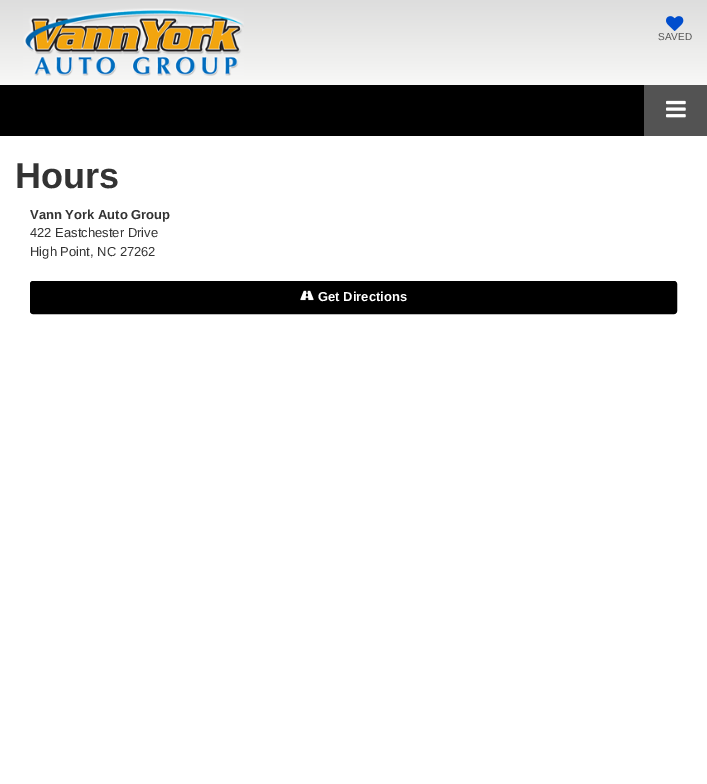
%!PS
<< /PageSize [707 784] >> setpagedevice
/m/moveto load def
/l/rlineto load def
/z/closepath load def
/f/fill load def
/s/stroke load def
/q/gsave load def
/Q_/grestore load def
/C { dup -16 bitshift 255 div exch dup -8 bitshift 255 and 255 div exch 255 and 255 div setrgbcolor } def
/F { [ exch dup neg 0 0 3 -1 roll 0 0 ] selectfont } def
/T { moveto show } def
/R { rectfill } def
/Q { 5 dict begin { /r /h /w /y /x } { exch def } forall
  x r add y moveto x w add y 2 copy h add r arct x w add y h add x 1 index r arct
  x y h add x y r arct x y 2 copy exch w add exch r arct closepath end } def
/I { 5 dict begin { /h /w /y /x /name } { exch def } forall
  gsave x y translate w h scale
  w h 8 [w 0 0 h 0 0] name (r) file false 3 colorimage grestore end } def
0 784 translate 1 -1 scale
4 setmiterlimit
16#FFFFFF C
0 0 707 784 R
q 0 0 m 707 0 l 0 85 l -707 0 l z clip newpath
<< /ShadingType 2 /ColorSpace /DeviceRGB /Coords [354 0 354 136] /Extend [true true] /Function << /FunctionType 3 /Domain [0 1] /Functions [<< /FunctionType 2 /Domain [0 1] /C0 [.867 .867 .867] /C1 [.933 .933 .929] /N 1 >> << /FunctionType 2 /Domain [0 1] /C0 [.933 .933 .929] /C1 [1 1 1] /N 1 >> << /FunctionType 2 /Domain [0 1] /C0 [1 1 1] /C1 [1 1 1] /N 1 >>] /Bounds [.4 .8] /Encode [0 1 0 1 0 1] >> >> shfill Q_
(1.rgb) 23 8 221 68 I
(2.rgb) 666 16 18 15 I
/LiberationSans-Regular 10 F
16#555555 C
(SAVED) 658 40 T
16#000000 C
0 85 644 51 R
16#535353 C
644 85 63 51 R
(3.rgb) 666 100 20 18 I
/LiberationSans-Bold 36 F
16#333333 C
(Hours) 15 188 T
/LiberationSans-Bold 13 F
(Vann York Auto Group) 30 219 T
/LiberationSans-Regular 13 F
(422 Eastchester Drive) 30 237 T
(High Point, NC 27262) 30 256 T
16#000000 C
30.5 281.5 646 32 2.5 Q q f Q_
s
(4.rgb) 300 290 14 11 I
/LiberationSans-Bold 13 F
16#FFFFFF C
(Get Directions) 318 301 T
showpage
